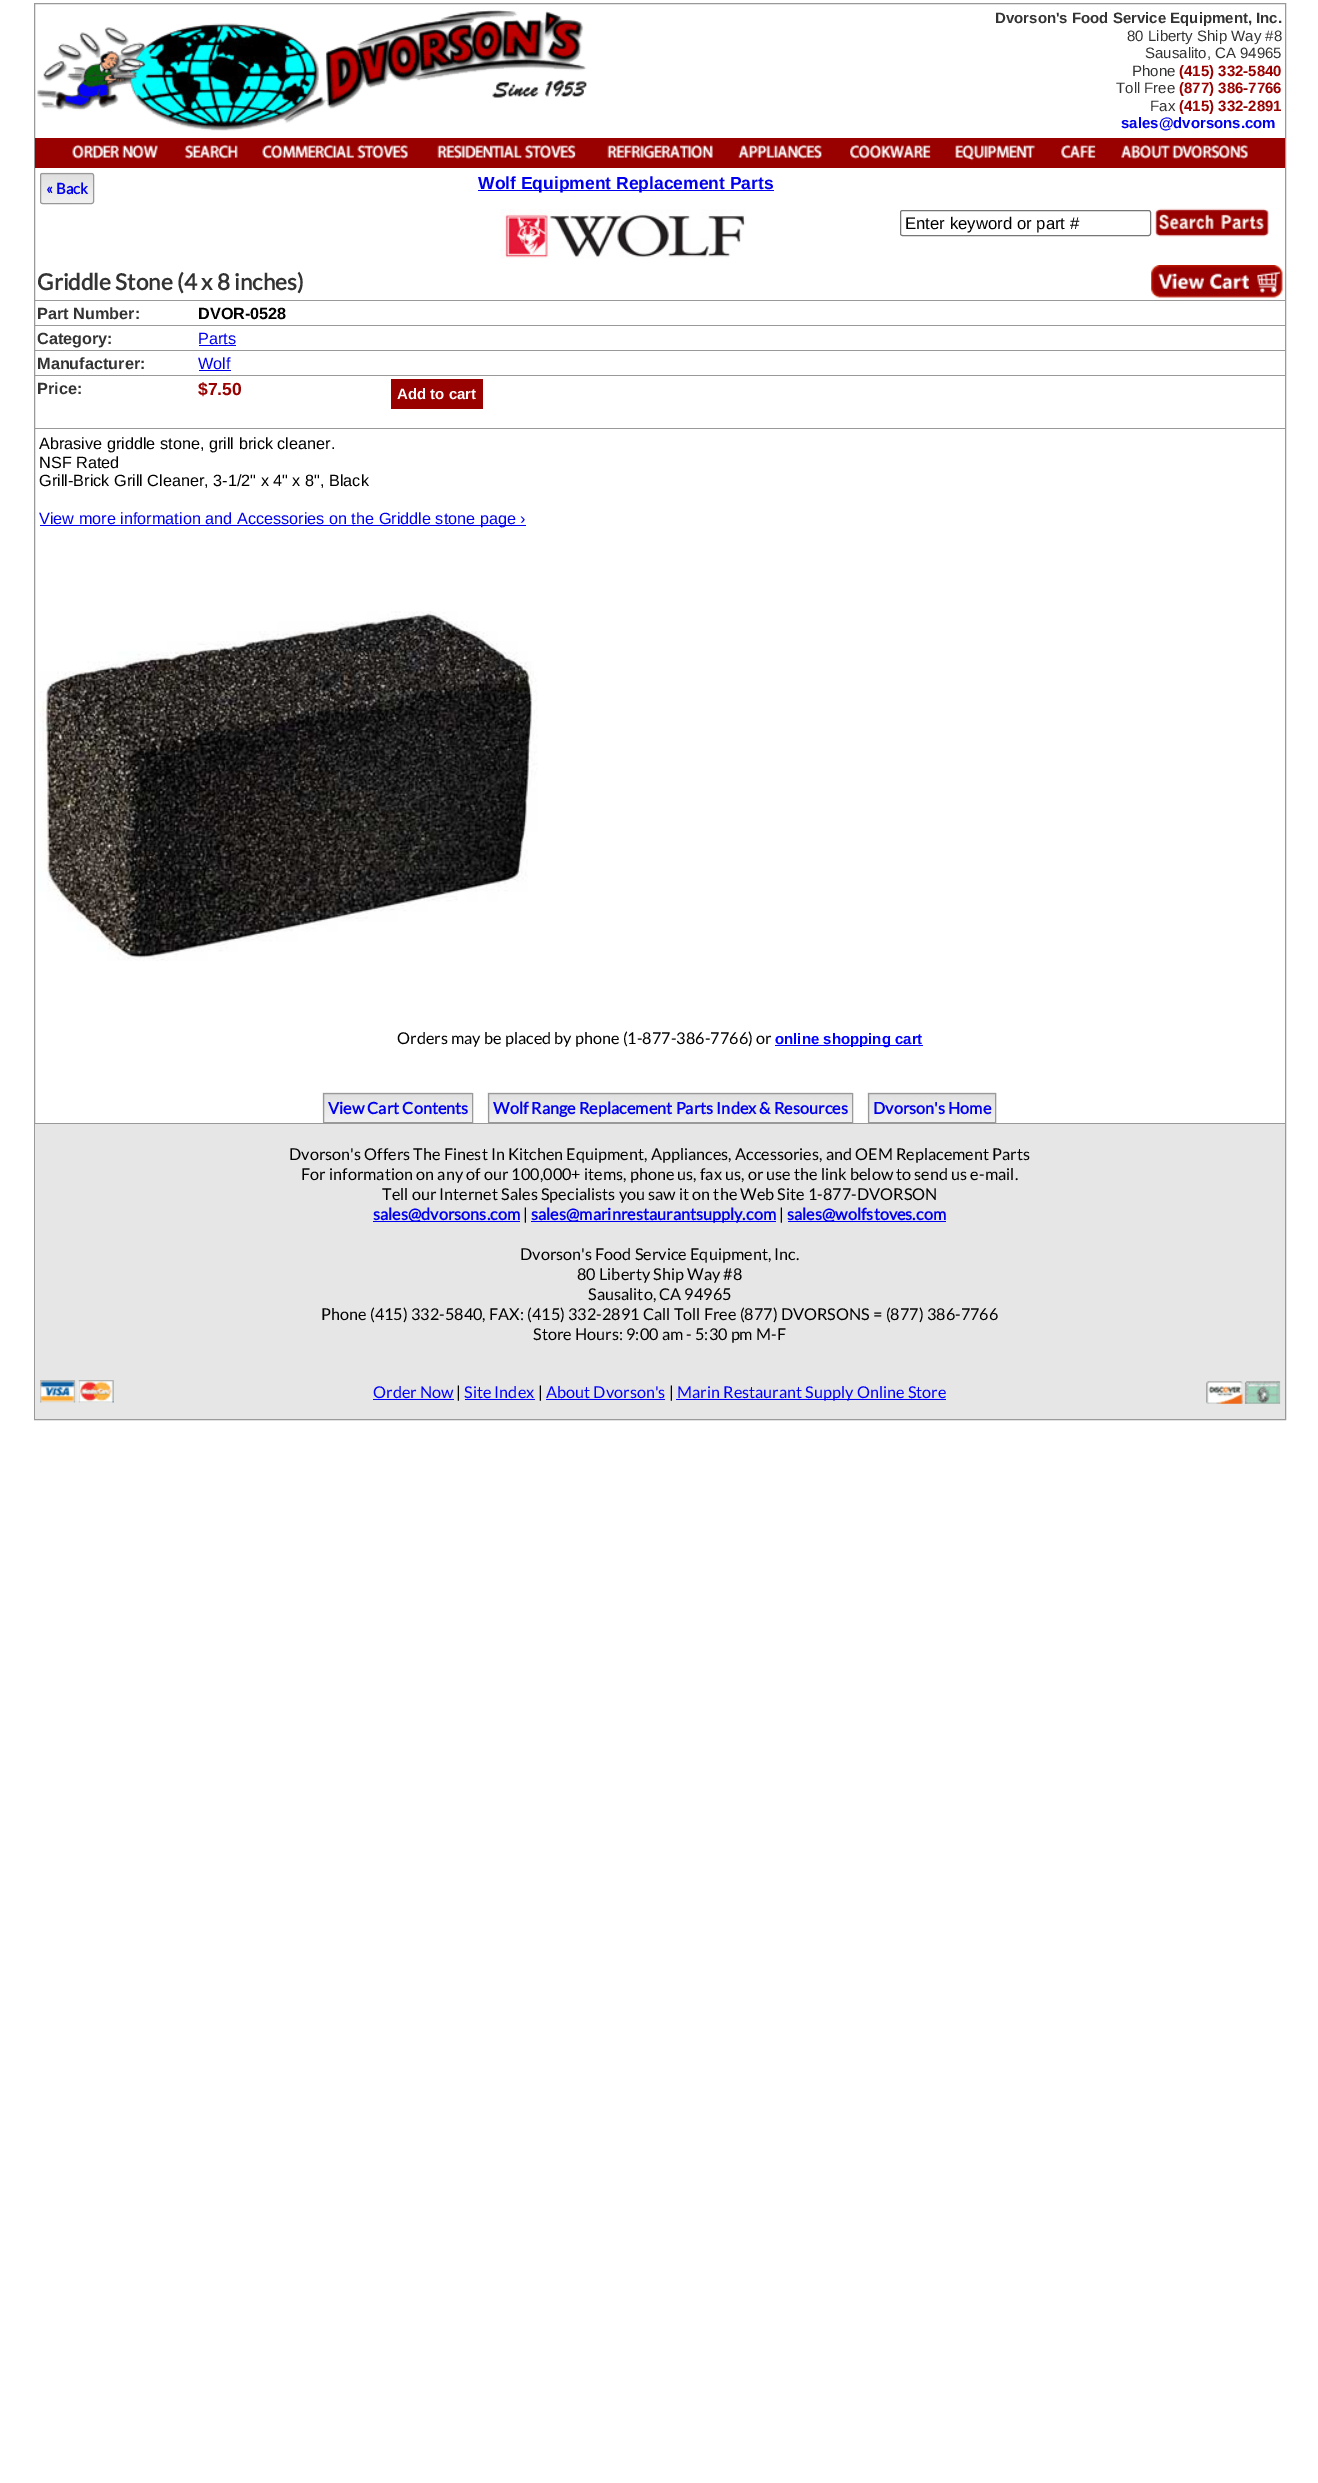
%!PS
<< /PageSize [1318 2483] >> setpagedevice
/s/stroke load def
/C { dup -16 bitshift 255 div exch dup -8 bitshift 255 and 255 div exch 255 and 255 div setrgbcolor } def
/F { [ exch dup neg 0 0 3 -1 roll 0 0 ] selectfont } def
/T { moveto show } def
/R { rectfill } def
/Q { 5 dict begin { /r /h /w /y /x } { exch def } forall
  x r add y moveto x w add y 2 copy h add r arct x w add y h add x 1 index r arct
  x y h add x y r arct x y 2 copy exch w add exch r arct closepath end } def
/I { 5 dict begin { /h /w /y /x /name } { exch def } forall
  gsave x y translate w h scale
  w h 8 [w 0 0 h 0 0] name (r) file false 3 colorimage grestore end } def
0 2483 translate 1 -1 scale
4 setmiterlimit
16#FFFFFF C
0 0 1318 2483 R
16#999999 C
34.5 3.5 1251 1416 rectstroke
(1.rgb) 37 10 550 121 I
/LiberationSans-Bold 15 F
16#333333 C
(Dvorson's Food Service Equipment, Inc.) 995 23 T
/LiberationSans-Regular 15 F
(80 Liberty Ship Way #8) 1127 41 T
(Sausalito, CA 94965) 1145 58 T
(Phone) 1132 76 T
/LiberationSans-Bold 15 F
16#990000 C
(\(415\) 332-5840) 1179 76 T
/LiberationSans-Regular 15 F
16#333333 C
(Toll Free) 1116 93 T
/LiberationSans-Bold 15 F
16#990000 C
(\(877\) 386-7766) 1179 93 T
/LiberationSans-Regular 15 F
16#333333 C
(Fax) 1150 111 T
/LiberationSans-Bold 15 F
16#990000 C
(\(415\) 332-2891) 1179 111 T
16#0000EE C
(sales@dvorsons.com) 1121 128 T
16#990000 C
35 138 1250 30 R
(2.rgb) 72 144 86 15 I
(3.rgb) 184 144 54 15 I
(4.rgb) 262 144 146 15 I
(5.rgb) 437 144 139 15 I
(6.rgb) 607 144 106 15 I
(7.rgb) 738 144 84 15 I
(8.rgb) 850 144 81 15 I
(9.rgb) 955 144 81 17 I
(10.rgb) 1061 144 35 15 I
(11.rgb) 1121 144 127 15 I
(12.rgb) 40 172 54 32 I
16#999999 C
40.5 173.5 53 30 2 Q s
/Lato-Bold 15 F
16#0000EE C
(« Back) 46 194 T
478 190 296 1 R
/LiberationSans-Bold 17.5 F
(Wolf Equipment Replacement Parts) 478 189 T
(13.rgb) 500 209 246 50 I
16#767676 C
900.5 210.5 250 25 2 Q s
/LiberationSans-Regular 16.75 F
16#000000 C
(Enter keyword or part #) 905 229 T
(14.rgb) 1155 208 114 29 I
16#999999 C
34 300 1251 1 R
(15.rgb) 1151 265 132 33 I
/Lato-Bold 22.5 F
16#333333 C
(Griddle Stone \(4 x 8 inches\)) 37 290 T
/LiberationSans-Bold 16.25 F
(Part Number:) 37 319 T
16#999999 C
34 325 1251 1 R
16#000000 C
(DVOR-0528) 198 319 T
16#333333 C
(Category:) 37 344 T
16#999999 C
34 350 1251 1 R
/LiberationSans-Regular 16.25 F
16#0000EE C
(Parts) 198 344 T
199 345 37 1 R
/LiberationSans-Bold 16.25 F
16#333333 C
(Manufacturer:) 37 369 T
16#999999 C
34 375 1251 1 R
/LiberationSans-Regular 16.25 F
16#0000EE C
(Wolf) 198 369 T
199 370 32 1 R
/LiberationSans-Bold 16.25 F
16#333333 C
(Price:) 37 394 T
/LiberationSans-Bold 17.5 F
16#990000 C
($7.50) 198 395 T
391 379 92 30 R
/LiberationSans-Bold 15 F
16#FFFFFF C
(Add to cart) 397 399 T
16#999999 C
34 428 1251 1 R
/LiberationSans-Regular 16.25 F
16#000000 C
(Abrasive griddle stone, grill brick cleaner.) 39 449 T
(NSF Rated) 39 468 T
(Grill-Brick Grill Cleaner, 3-1/2" x 4" x 8", Black) 39 486 T
16#0000EE C
40 525 486 1 R
(View more information and Accessories on the Griddle stone page ›) 39 524 T
(16.rgb) 38 611 500 350 I
/Lato-Regular 16.25 F
16#000000 C
(Orders may be placed by phone \(1-877-386-7766\) or) 397 1044 T
16#0000FF C
775 1045 148 1 R
/LiberationSans-Bold 15 F
(online shopping cart) 775 1044 T
(17.rgb) 322 1092 151 31 I
16#999999 C
323.5 1093.5 149 29 rectstroke
/Lato-Bold 16.25 F
16#0000EE C
(View Cart Contents) 328 1114 T
(18.rgb) 487 1092 366 31 I
16#999999 C
488.5 1093.5 364 29 rectstroke
16#0000EE C
(Wolf Range Replacement Parts Index & Resources) 493 1114 T
(19.rgb) 867 1092 130 31 I
16#999999 C
868.5 1093.5 127 29 rectstroke
16#0000EE C
(Dvorson's Home) 873 1114 T
16#E6E6E6 C
35 1124 1250 295 R
16#999999 C
35 1123 1250 1 R
/Lato-Regular 16.25 F
16#000000 C
(Dvorson's Offers The Finest In Kitchen Equipment, Appliances, Accessories, and OEM Replacement Parts) 289 1160 T
(For information on any of our 100,000+ items, phone us, fax us, or use the link below to send us e-mail.) 301 1180 T
(Tell our Internet Sales Specialists you saw it on the Web Site 1-877-DVORSON) 382 1200 T
16#0000EE C
373 1221 147 1 R
/Lato-Bold 16.25 F
(sales@dvorsons.com) 373 1220 T
/Lato-Regular 16.25 F
16#000000 C
(|) 523 1220 T
16#0000EE C
531 1221 245 1 R
/Lato-Bold 16.25 F
(sales@marinrestaurantsupply.com) 531 1220 T
/Lato-Regular 16.25 F
16#000000 C
(|) 779 1220 T
16#0000EE C
788 1221 158 1 R
/Lato-Bold 16.25 F
(sales@wolfstoves.com) 787 1220 T
/Lato-Regular 16.25 F
16#000000 C
(Dvorson's Food Service Equipment, Inc.) 520 1260 T
(80 Liberty Ship Way #8) 577 1280 T
(Sausalito, CA 94965) 588 1300 T
(Phone \(415\) 332-5840, FAX: \(415\) 332-2891 Call Toll Free \(877\) DVORSONS = \(877\) 386-7766) 321 1320 T
(Store Hours: 9:00 am - 5:30 pm M-F) 533 1340 T
(20.rgb) 40 1380 74 23 I
16#0000FF C
(Order Now) 373 1398 T
373 1399 81 1 R
16#000000 C
(|) 456 1398 T
16#0000FF C
(Site Index) 464 1398 T
465 1399 70 1 R
16#000000 C
(|) 538 1398 T
16#0000FF C
(About Dvorson's) 546 1398 T
546 1399 119 1 R
16#000000 C
(|) 669 1398 T
16#0000FF C
676 1399 270 1 R
(Marin Restaurant Supply Online Store) 677 1398 T
(21.rgb) 1206 1381 75 23 I
showpage
